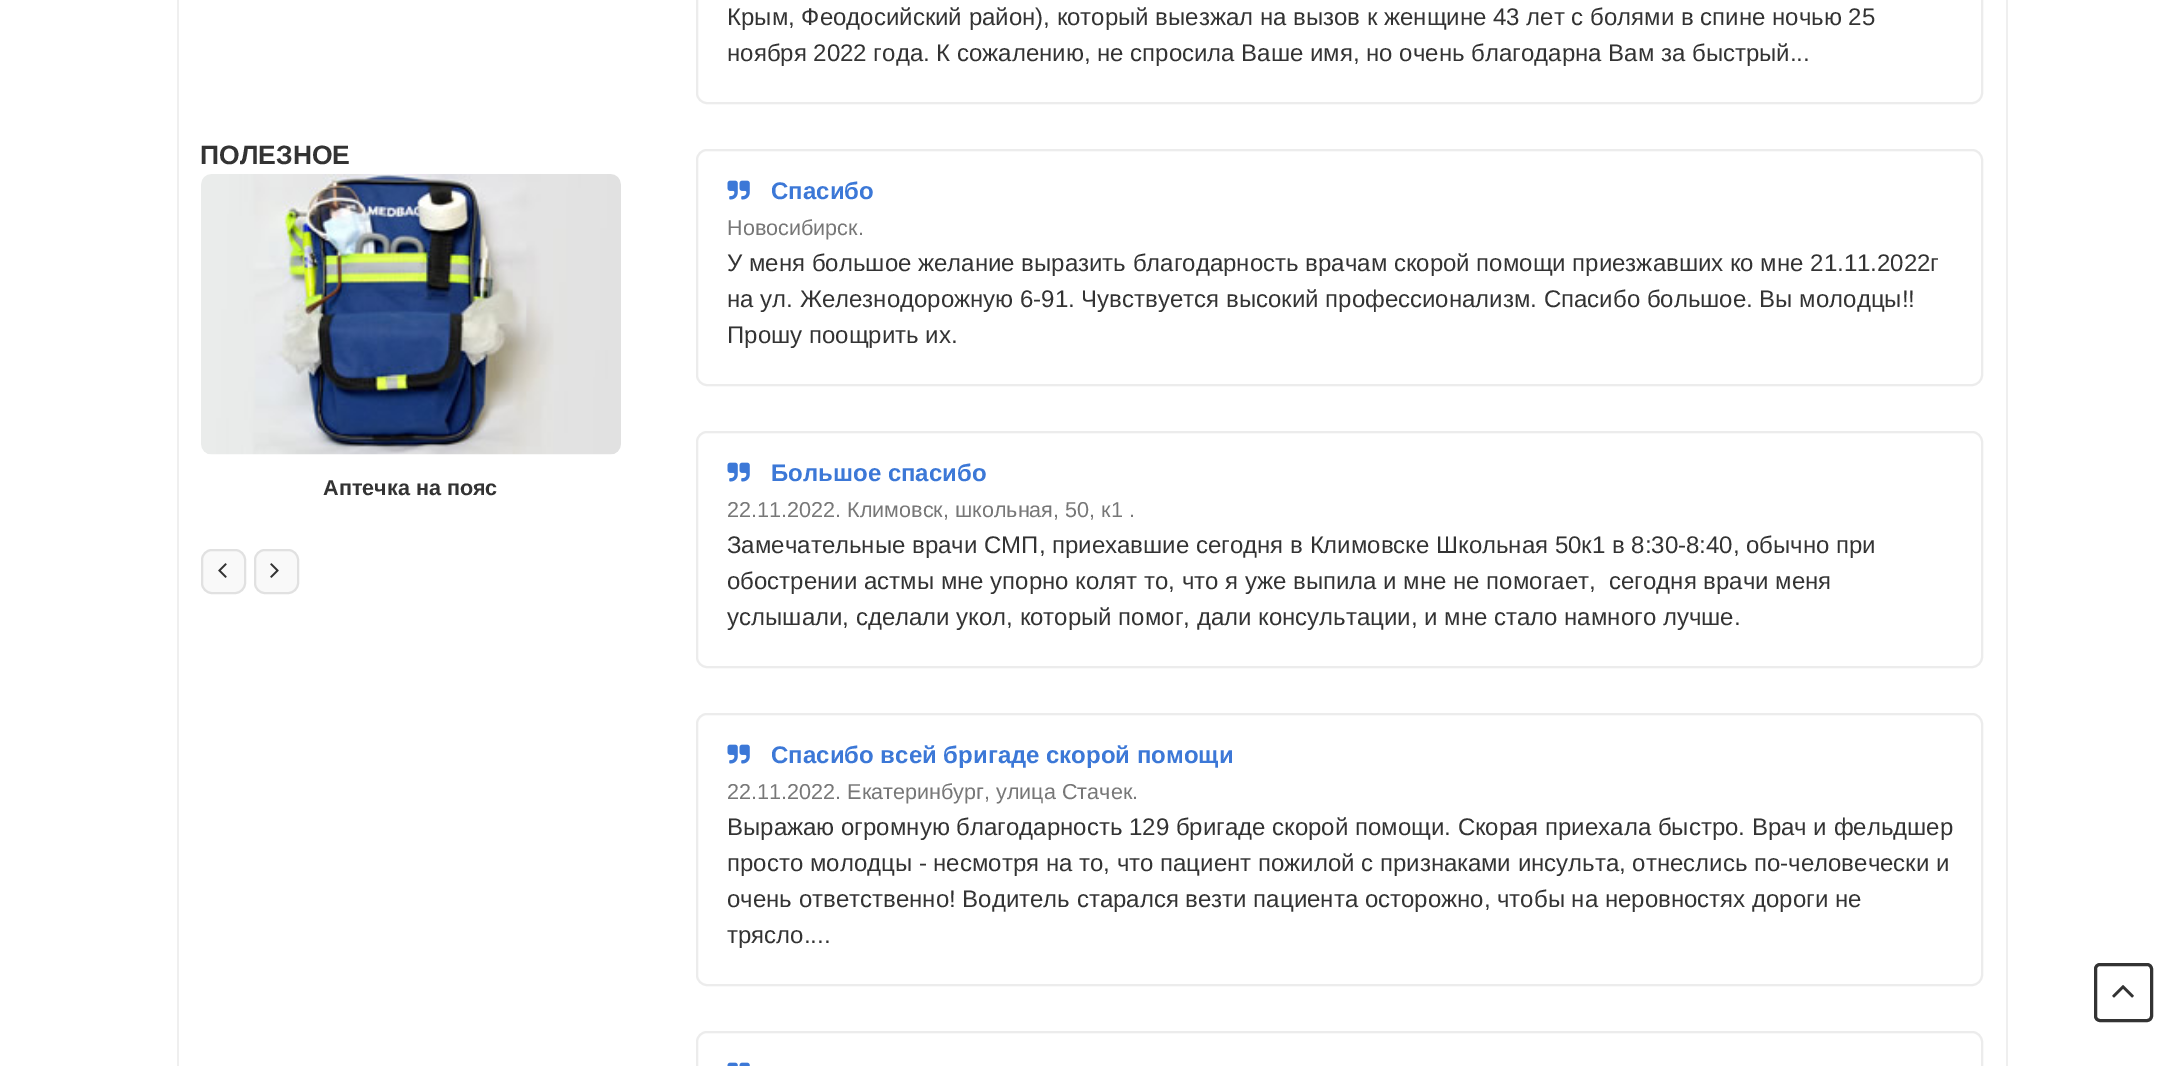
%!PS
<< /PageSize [2182 1066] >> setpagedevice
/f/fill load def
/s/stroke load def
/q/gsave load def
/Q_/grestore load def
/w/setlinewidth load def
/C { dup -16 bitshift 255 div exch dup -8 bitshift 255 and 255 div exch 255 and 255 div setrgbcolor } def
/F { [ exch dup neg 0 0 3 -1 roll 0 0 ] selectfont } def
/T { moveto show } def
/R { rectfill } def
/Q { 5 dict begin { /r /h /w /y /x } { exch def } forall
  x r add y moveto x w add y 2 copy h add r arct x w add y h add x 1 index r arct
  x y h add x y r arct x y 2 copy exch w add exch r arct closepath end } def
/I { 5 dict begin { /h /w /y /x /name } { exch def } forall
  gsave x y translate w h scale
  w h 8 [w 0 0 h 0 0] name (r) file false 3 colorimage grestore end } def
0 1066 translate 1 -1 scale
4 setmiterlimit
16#FFFFFF C
0 0 2182 1066 R
16#EFEFEF C
2006 0 2 1066 R
177 0 2 1066 R
/LiberationSans-Bold 26.5 F
16#333333 C
(ПОЛЕЗНОЕ) 200 164 T
(1.rgb) 201 174 420 281 I
/LiberationSans-Bold 21.6 F
(Аптечка на пояс) 323 495 T
16#F9F9F9 C
202 550 43 43 10 Q q f Q_
16#E1E1E1 C
2 w
s
(2.rgb) 218 563 9 15 I
16#F9F9F9 C
255 550 43 43 10 Q q f Q_
16#E1E1E1 C
s
(3.rgb) 270 563 9 15 I
16#ECECEC C
697 -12 1285 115 10 Q s
/LiberationSans-Regular 24 F
16#333333 C
(Крым, Феодосийский район\), который выезжал на вызов к женщине 43 лет с болями в спине ночью 25) 727 25 T
(ноября 2022 года. К сожалению, не спросила Ваше имя, но очень благодарна Вам за быстрый...) 727 61 T
16#ECECEC C
697 150 1285 235 10 Q s
(4.rgb) 727 180 23 20 I
/LiberationSans-Bold 24 F
16#3C78D7 C
(Спасибо) 771 199 T
/LiberationSans-Regular 21.6 F
16#777777 C
(Новосибирск.) 727 235 T
/LiberationSans-Regular 24 F
16#333333 C
(У меня большое желание выразить благодарность врачам скорой помощи приезжавших ко мне 21.11.2022г) 727 271 T
(на ул. Железнодорожную 6-91. Чувствуется высокий профессионализм. Спасибо большое. Вы молодцы!!) 727 307 T
(Прошу поощрить их.) 727 343 T
16#ECECEC C
697 432 1285 235 10 Q s
(4.rgb) 727 462 23 20 I
/LiberationSans-Bold 24 F
16#3C78D7 C
(Большое спасибо) 771 481 T
/LiberationSans-Regular 21.6 F
16#777777 C
(22.11.2022. Климовск, школьная, 50, к1 .) 727 517 T
/LiberationSans-Regular 24 F
16#333333 C
(Замечательные врачи СМП, приехавшие сегодня в Климовске Школьная 50к1 в 8:30-8:40, обычно при) 727 553 T
(обострении астмы мне упорно колят то, что я уже выпила и мне не помогает,  сегодня врачи меня) 727 589 T
(услышали, сделали укол, который помог, дали консультации, и мне стало намного лучше.) 727 625 T
16#ECECEC C
697 714 1285 271 10 Q s
(4.rgb) 727 744 23 20 I
/LiberationSans-Bold 24 F
16#3C78D7 C
(Спасибо всей бригаде скорой помощи) 771 763 T
/LiberationSans-Regular 21.6 F
16#777777 C
(22.11.2022. Екатеринбург, улица Стачек.) 727 799 T
/LiberationSans-Regular 24 F
16#333333 C
(Выражаю огромную благодарность 129 бригаде скорой помощи. Скорая приехала быстро. Врач и фельдшер) 727 835 T
(просто молодцы - несмотря на то, что пациент пожилой с признаками инсульта, отнеслись по-человечески и) 727 871 T
(очень ответственно! Водитель старался везти пациента осторожно, чтобы на неровностях дороги не) 727 907 T
(трясло....) 727 943 T
16#ECECEC C
697 1032 1285 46 10 Q s
(5.rgb) 727 1062 23 4 I
16#333333 C
3 w
2095.5 964.5 56 56 4.5 Q s
(6.rgb) 2112 985 22 13 I
showpage
